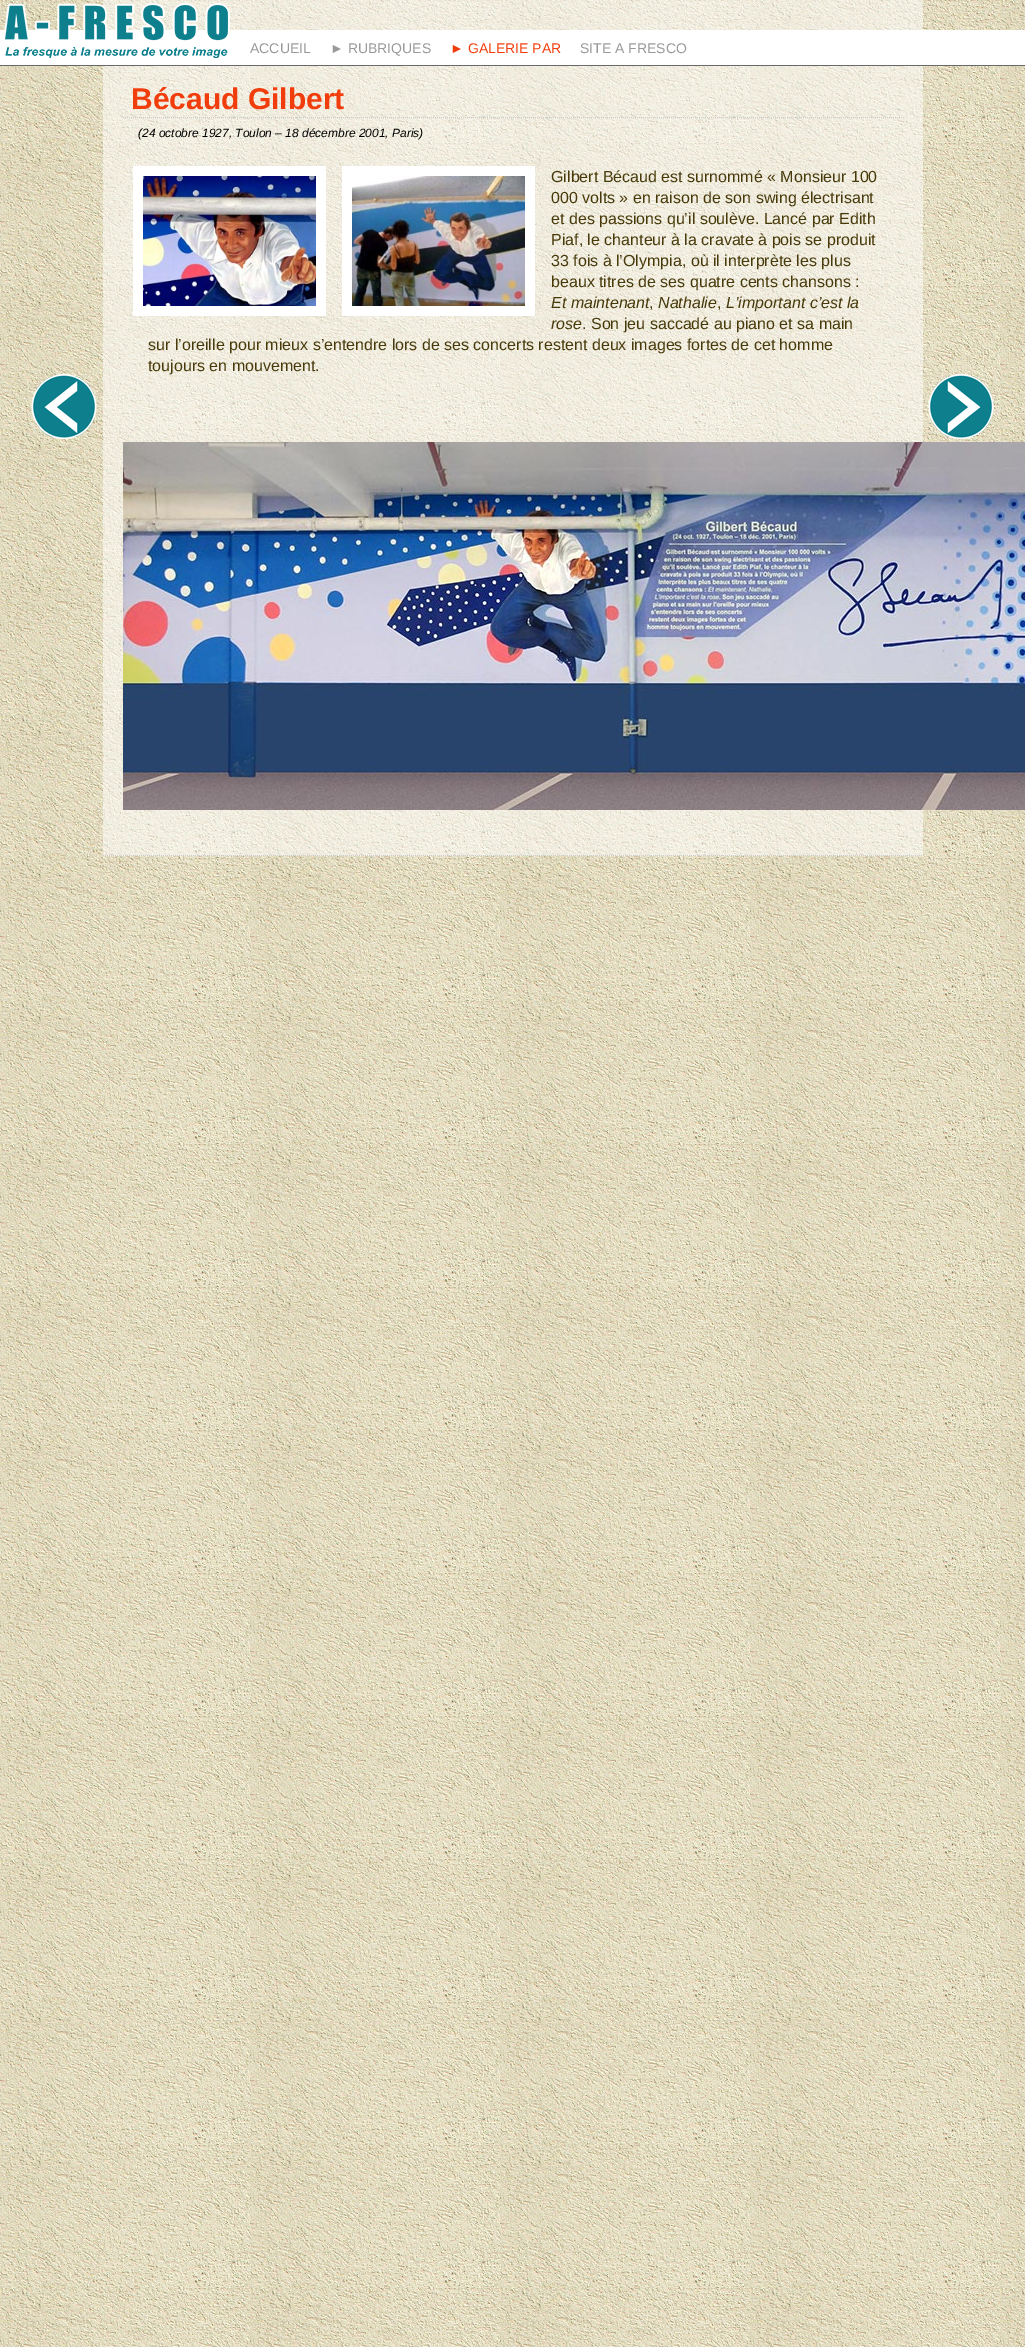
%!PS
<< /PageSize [1025 2347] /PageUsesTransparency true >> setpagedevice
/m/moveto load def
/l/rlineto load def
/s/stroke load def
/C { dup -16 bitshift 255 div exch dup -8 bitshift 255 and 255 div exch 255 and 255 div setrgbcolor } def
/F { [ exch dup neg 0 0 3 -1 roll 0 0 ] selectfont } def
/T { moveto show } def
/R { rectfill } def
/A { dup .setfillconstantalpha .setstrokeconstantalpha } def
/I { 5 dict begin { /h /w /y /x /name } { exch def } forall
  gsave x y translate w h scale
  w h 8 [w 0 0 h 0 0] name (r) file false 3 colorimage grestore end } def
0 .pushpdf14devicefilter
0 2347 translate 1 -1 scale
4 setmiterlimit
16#FFFFFF C
0 0 1025 2347 R
(1.rgb) 0 0 1025 2347 I
0.5 A
103 0 820 856 R
1 A
0 30 1025 35 R
(2.rgb) 4 3 226 55 I
16#696969 C
0 65 1025 1 R
/LiberationSans-Regular 14 F
16#999999 C
(ACCUEIL) 250 53 T
(► RUBRIQUES) 330 53 T
16#F13D0C C
(► GALERIE PAR) 450 53 T
16#999999 C
(SITE A FRESCO) 580 53 T
16#CCCCCC C
[1 1] 0 setdash
103 855.5 m 820 0 l s
123 117.5 m 780 0 l s
/LiberationSans-Bold 30 F
16#F13D0C C
(Bécaud Gilbert) 131 109 T
/LiberationSans-Italic 12 F
16#000000 C
(\(24 octobre 1927, Toulon – 18 décembre 2001, Paris\)) 138 137 T
16#FFFFFF C
133 166 193 150 R
(3.rgb) 143 176 173 130 I
342 166 193 150 R
(4.rgb) 352 176 173 130 I
/LiberationSans-Regular 16 F
16#473909 C
(Gilbert Bécaud est surnommé « Monsieur 100) 551 182 T
(000 volts » en raison de son swing électrisant) 551 203 T
(et des passions qu’il soulève. Lancé par Edith) 551 224 T
(Piaf, le chanteur à la cravate à pois se produit) 551 245 T
(33 fois à l’Olympia, où il interprète les plus) 551 266 T
(beaux titres de ses quatre cents chansons :) 551 287 T
/LiberationSans-Italic 16 F
(Et maintenant) 551 308 T
/LiberationSans-Regular 16 F
(,) 649 308 T
/LiberationSans-Italic 16 F
(Nathalie) 658 308 T
/LiberationSans-Regular 16 F
(,) 717 308 T
/LiberationSans-Italic 16 F
(L’important c’est la) 726 308 T
(rose) 551 329 T
/LiberationSans-Regular 16 F
(. Son jeu saccadé au piano et sa main) 582 329 T
(sur l’oreille pour mieux s’entendre lors de ses concerts restent deux images fortes de cet homme) 148 350 T
(toujours en mouvement.) 148 371 T
(5.rgb) 123 442 902 368 I
(6.rgb) 31 374 66 65 I
(7.rgb) 928 374 66 65 I
.poppdf14devicefilter showpage
